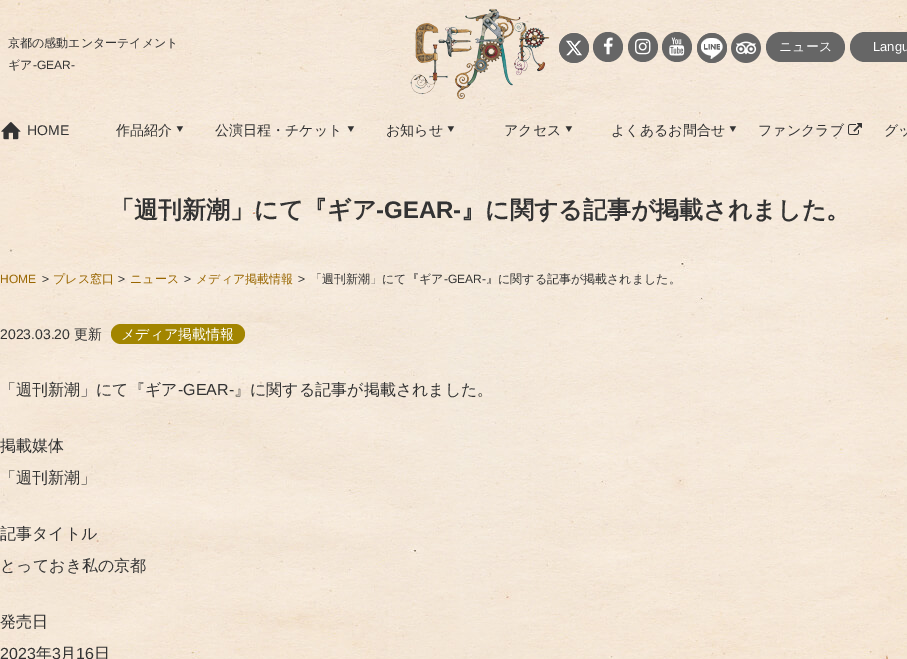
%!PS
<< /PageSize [907 659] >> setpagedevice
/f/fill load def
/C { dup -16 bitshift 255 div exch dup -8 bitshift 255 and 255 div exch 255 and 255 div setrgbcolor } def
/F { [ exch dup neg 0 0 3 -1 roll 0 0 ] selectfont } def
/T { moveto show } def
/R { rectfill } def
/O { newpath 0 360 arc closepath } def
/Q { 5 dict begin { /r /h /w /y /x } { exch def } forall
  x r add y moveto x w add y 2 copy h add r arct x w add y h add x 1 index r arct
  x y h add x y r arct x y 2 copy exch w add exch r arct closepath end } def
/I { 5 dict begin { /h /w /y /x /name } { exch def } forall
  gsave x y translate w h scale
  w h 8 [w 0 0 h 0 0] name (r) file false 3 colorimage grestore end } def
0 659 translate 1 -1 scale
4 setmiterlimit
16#FFFFFF C
0 0 907 659 R
(1.rgb) 0 0 907 659 I
/WenQuanYiZenHei-Medium 12 F
16#333333 C
(京都の感動エンターテイメント) 8 47 T
(ギア) 8 69 T
/LiberationSans-Regular 12 F
(-GEAR-) 33 69 T
(2.rgb) 410 8 140 92 I
(3.rgb) 559 33 30 30 I
16#666666 C
608 47 15 O f
(4.rgb) 603 37 10 18 I
643 47 15 O f
(5.rgb) 635 38 16 17 I
677 47 15 O f
(6.rgb) 669 37 16 19 I
(7.rgb) 697 33 30 30 I
(8.rgb) 731 33 30 30 I
766 32 79 30 15 Q f
/WenQuanYiZenHei-Medium 13 F
16#FFFFFF C
(ニュース) 779 51 T
16#666666 C
850 32 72 30 15 Q f
/LiberationSans-Regular 13 F
16#FFFFFF C
(Langu) 873 51 T
(9.rgb) 1 122 20 18 I
/LiberationSans-Regular 14 F
16#333333 C
(HOME) 27 135 T
/WenQuanYiZenHei-Medium 14 F
(作品紹介) 116 135 T
(10.rgb) 176 126 8 6 I
(公演日程・チケット) 215 135 T
(11.rgb) 347 126 8 6 I
(お知らせ) 386 135 T
(12.rgb) 447 126 8 6 I
(アクセス) 504 135 T
(13.rgb) 565 126 8 6 I
(よくあるお問合せ) 611 135 T
(14.rgb) 729 126 8 6 I
(ファンクラブ) 758 135 T
(15.rgb) 848 123 14 12 I
(グッ) 884 135 T
/WenQuanYiZenHei-Bold 24 F
(「週刊新潮」にて『ギア) 110 218 T
/LiberationSans-Bold 24 F
(-GEAR-) 376 218 T
/WenQuanYiZenHei-Bold 24 F
(』に関する記事が掲載されました。) 461 218 T
/LiberationSans-Regular 12 F
16#996600 C
(HOME) 0 283 T
16#333333 C
(>) 42 283 T
/WenQuanYiZenHei-Medium 12 F
16#996600 C
(プレス窓口) 53 283 T
/LiberationSans-Regular 12 F
16#333333 C
(>) 118 283 T
/WenQuanYiZenHei-Medium 12 F
16#996600 C
(ニュース) 130 283 T
/LiberationSans-Regular 12 F
16#333333 C
(>) 184 283 T
/WenQuanYiZenHei-Medium 12 F
16#996600 C
(メディア掲載情報) 196 283 T
/LiberationSans-Regular 12 F
16#333333 C
(>) 298 283 T
/WenQuanYiZenHei-Medium 12 F
(「週刊新潮」にて『ギア) 310 283 T
/LiberationSans-Regular 12 F
(-GEAR-) 444 283 T
/WenQuanYiZenHei-Medium 12 F
(』に関する記事が掲載されました。) 486 283 T
/LiberationSans-Regular 14 F
(2023.03.20) 0 339 T
/WenQuanYiZenHei-Medium 14 F
(更新) 74 339 T
16#A28500 C
111 324 134 20 10 Q f
16#FFFFFF C
(メディア掲載情報) 121 339 T
/WenQuanYiZenHei-Medium 16 F
16#333333 C
(「週刊新潮」にて『ギア) 0 395 T
/LiberationSans-Regular 16 F
(-GEAR-) 178 395 T
/WenQuanYiZenHei-Medium 16 F
(』に関する記事が掲載されました。) 234 395 T
(掲載媒体) 0 451 T
(「週刊新潮」) 0 483 T
(記事タイトル) 0 539 T
(とっておき私の京都) 0 571 T
(発売日) 0 627 T
/LiberationSans-Regular 16 F
(2023) 0 659 T
/WenQuanYiZenHei-Medium 16 F
(年) 36 659 T
/LiberationSans-Regular 16 F
(3) 52 659 T
/WenQuanYiZenHei-Medium 16 F
(月) 60 659 T
/LiberationSans-Regular 16 F
(16) 76 659 T
/WenQuanYiZenHei-Medium 16 F
(日) 94 659 T
showpage
